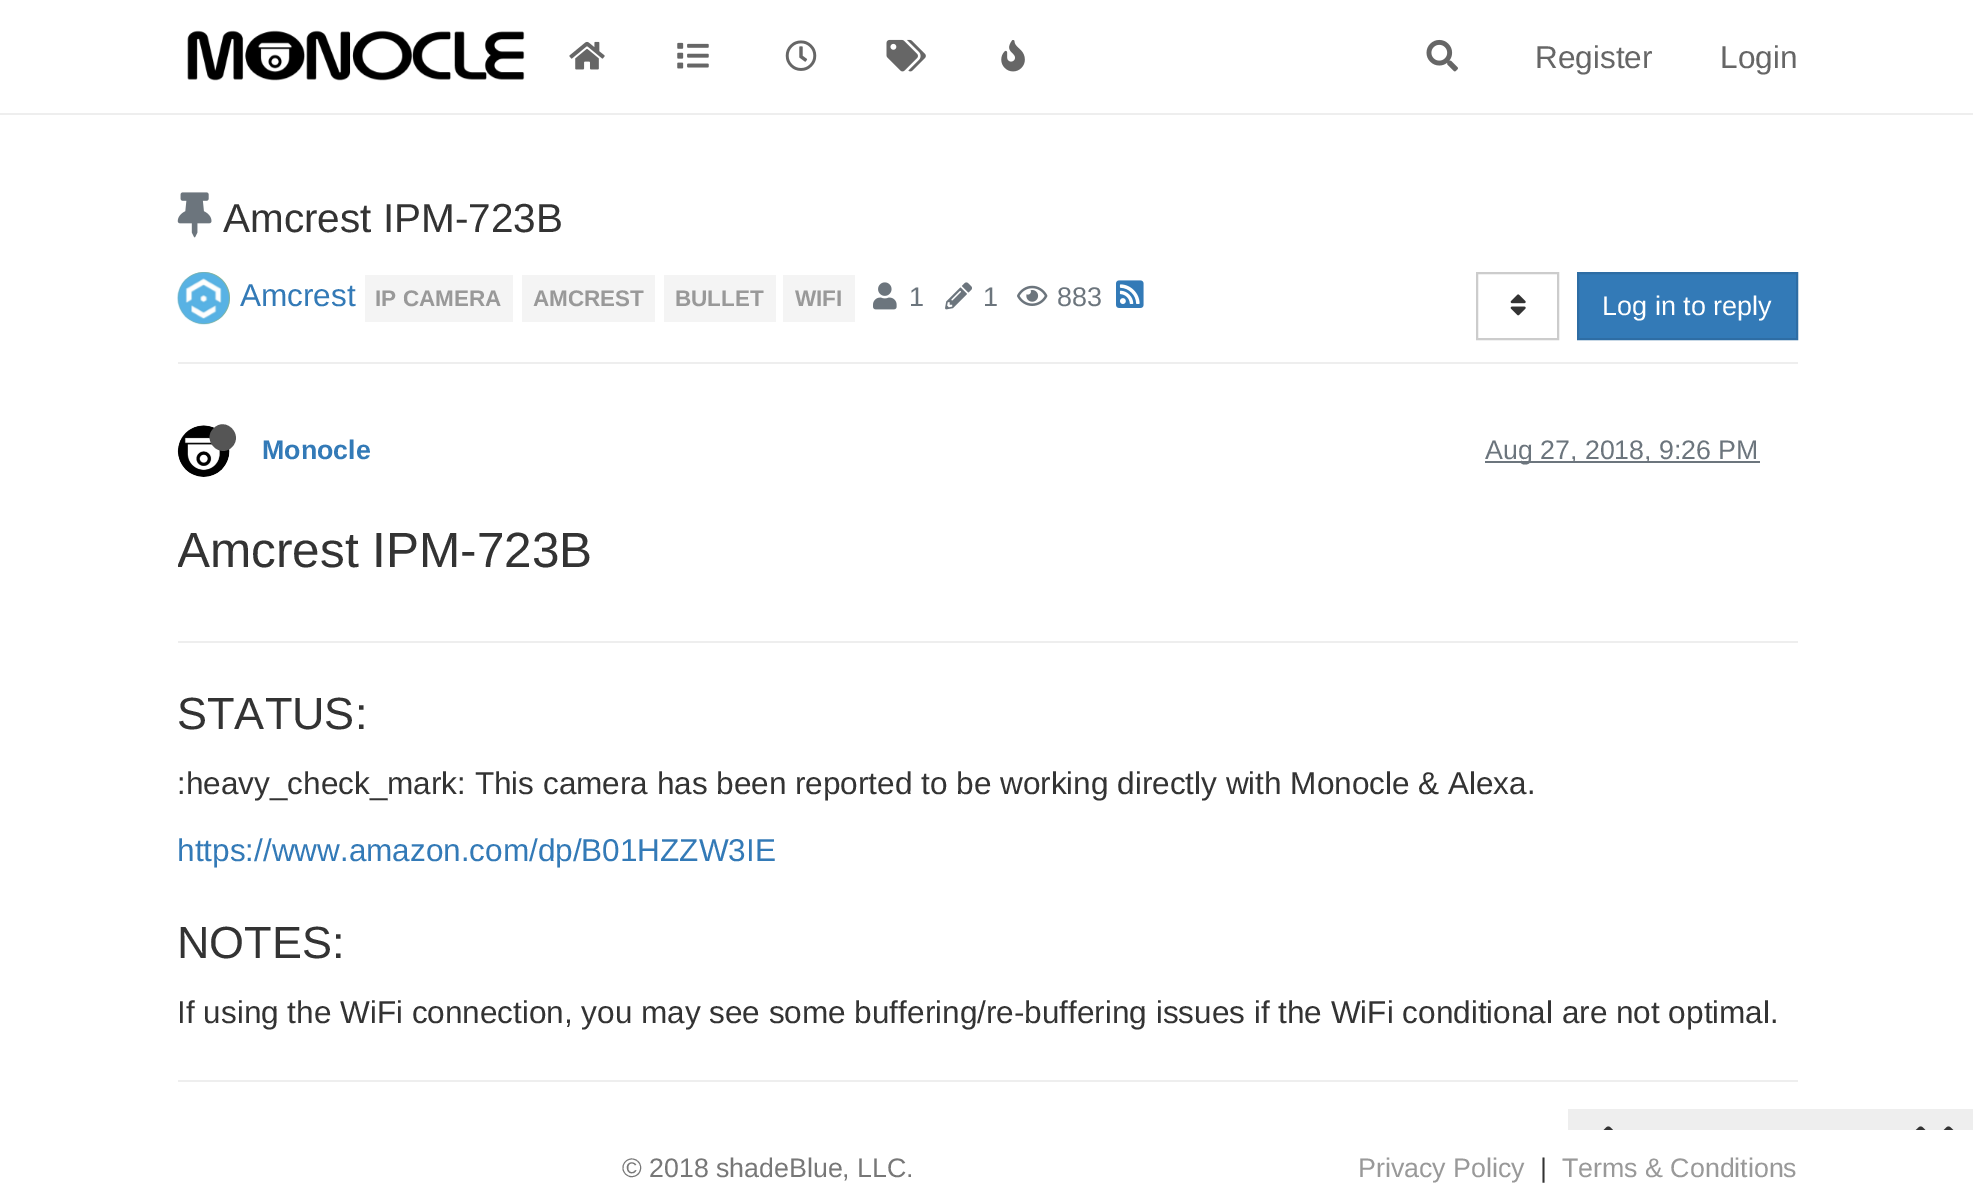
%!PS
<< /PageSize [1973 1195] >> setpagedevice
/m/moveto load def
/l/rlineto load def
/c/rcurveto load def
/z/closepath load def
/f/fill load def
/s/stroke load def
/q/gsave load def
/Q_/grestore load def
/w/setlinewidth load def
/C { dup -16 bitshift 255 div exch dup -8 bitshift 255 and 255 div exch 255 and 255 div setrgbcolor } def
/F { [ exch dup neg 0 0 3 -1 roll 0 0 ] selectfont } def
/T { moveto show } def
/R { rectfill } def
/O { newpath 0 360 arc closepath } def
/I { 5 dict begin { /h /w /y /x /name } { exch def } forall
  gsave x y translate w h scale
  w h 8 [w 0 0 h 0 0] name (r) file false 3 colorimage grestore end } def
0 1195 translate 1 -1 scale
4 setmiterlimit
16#FFFFFF C
0 0 1973 1195 R
16#EEEEEE C
0 113 1973 2 R
(1.rgb) 187 30 338 51 I
(2.rgb) 569 41 36 29 I
(3.rgb) 677 42 32 27 I
(4.rgb) 785 40 32 31 I
(5.rgb) 886 39 40 33 I
(6.rgb) 1001 40 24 32 I
(7.rgb) 1426 39 32 33 I
/LiberationSans-Regular 31.5 F
16#666666 C
(Register) 1535 68 T
(Login) 1720 68 T
(8.rgb) 177 192 35 46 I
/LiberationSans-Regular 40.5 F
16#333333 C
(Amcrest IPM-723B) 223 232 T
16#EEEEEE C
178 362 1620 2 R
16#A1B56C C
204 298 26 O f
(9.rgb) 177 272 53 53 I
/LiberationSans-Regular 31.5 F
16#337AB7 C
(Amcrest) 240 306 T
16#F4F4F4 C
365 275 148 47 R
/LiberationSans-Bold 22.5 F
16#999999 C
(IP CAMERA) 375 306 T
16#F4F4F4 C
522 275 133 47 R
16#999999 C
(AMCREST) 533 306 T
16#F4F4F4 C
664 275 112 47 R
16#999999 C
(BULLET) 675 306 T
16#F4F4F4 C
783 275 72 47 R
16#999999 C
(WIFI) 795 306 T
(10.rgb) 873 282 24 28 I
/LiberationSans-Regular 27 F
16#6C757D C
(1) 909 306 T
(11.rgb) 945 282 27 28 I
(1) 983 306 T
(12.rgb) 1017 285 31 21 I
(883) 1057 306 T
(13.rgb) 1116 280 28 28 I
16#CCCCCC C
2 w
1477 273 81 66 rectstroke
(14.rgb) 1510 294 16 22 I
16#337AB7 C
1578 273 m 219 0 l 0 66 l -219 0 l z q f Q_
16#2E6DA4 C
s
16#FFFFFF C
(Log in to reply) 1602 315 T
(15.rgb) 177 425 53 52 I
16#555555 C
213.5 428.5 m 12 -12.5 30.5 6 18.5 18.5 c -12 12 -30.5 -6.5 -18.5 -18.5 c z f
/LiberationSans-Bold 26.75 F
16#337AB7 C
(Monocle) 262 459 T
16#6C757D C
1485 461 275 2 R
/LiberationSans-Regular 26.75 F
(Aug 27, 2018, 9:26 PM) 1485 459 T
q
178 506 1620 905 rectclip
/LiberationSans-Regular 49.5 F
16#333333 C
(Amcrest IPM-723B) 177 567 T
Q_
16#EEEEEE C
178 641 1620 2 R
/LiberationSans-Regular 45 F
16#333333 C
(STATUS:) 177 729 T
/LiberationSans-Regular 31.5 F
(:heavy_check_mark: This camera has been reported to be working directly with Monocle & Alexa.) 177 794 T
16#337AB7 C
(https://www.amazon.com/dp/B01HZZW3IE) 177 861 T
/LiberationSans-Regular 45 F
16#333333 C
(NOTES:) 177 958 T
/LiberationSans-Regular 31.5 F
(If using the WiFi connection, you may see some buffering/re-buffering issues if the WiFi conditional are not optimal.) 177 1023 T
16#EEEEEE C
178 1080 1620 2 R
1568 1109 405 21 R
(16.rgb) 1603 1126 10 4 I
(17.rgb) 1915 1126 39 4 I
/LiberationSans-Regular 26.75 F
16#777777 C
(© 2018 shadeBlue, LLC.) 622 1177 T
16#999999 C
(Privacy Policy) 1358 1177 T
16#333333 C
(|) 1540 1177 T
16#999999 C
(Terms & Conditions) 1562 1177 T
showpage
